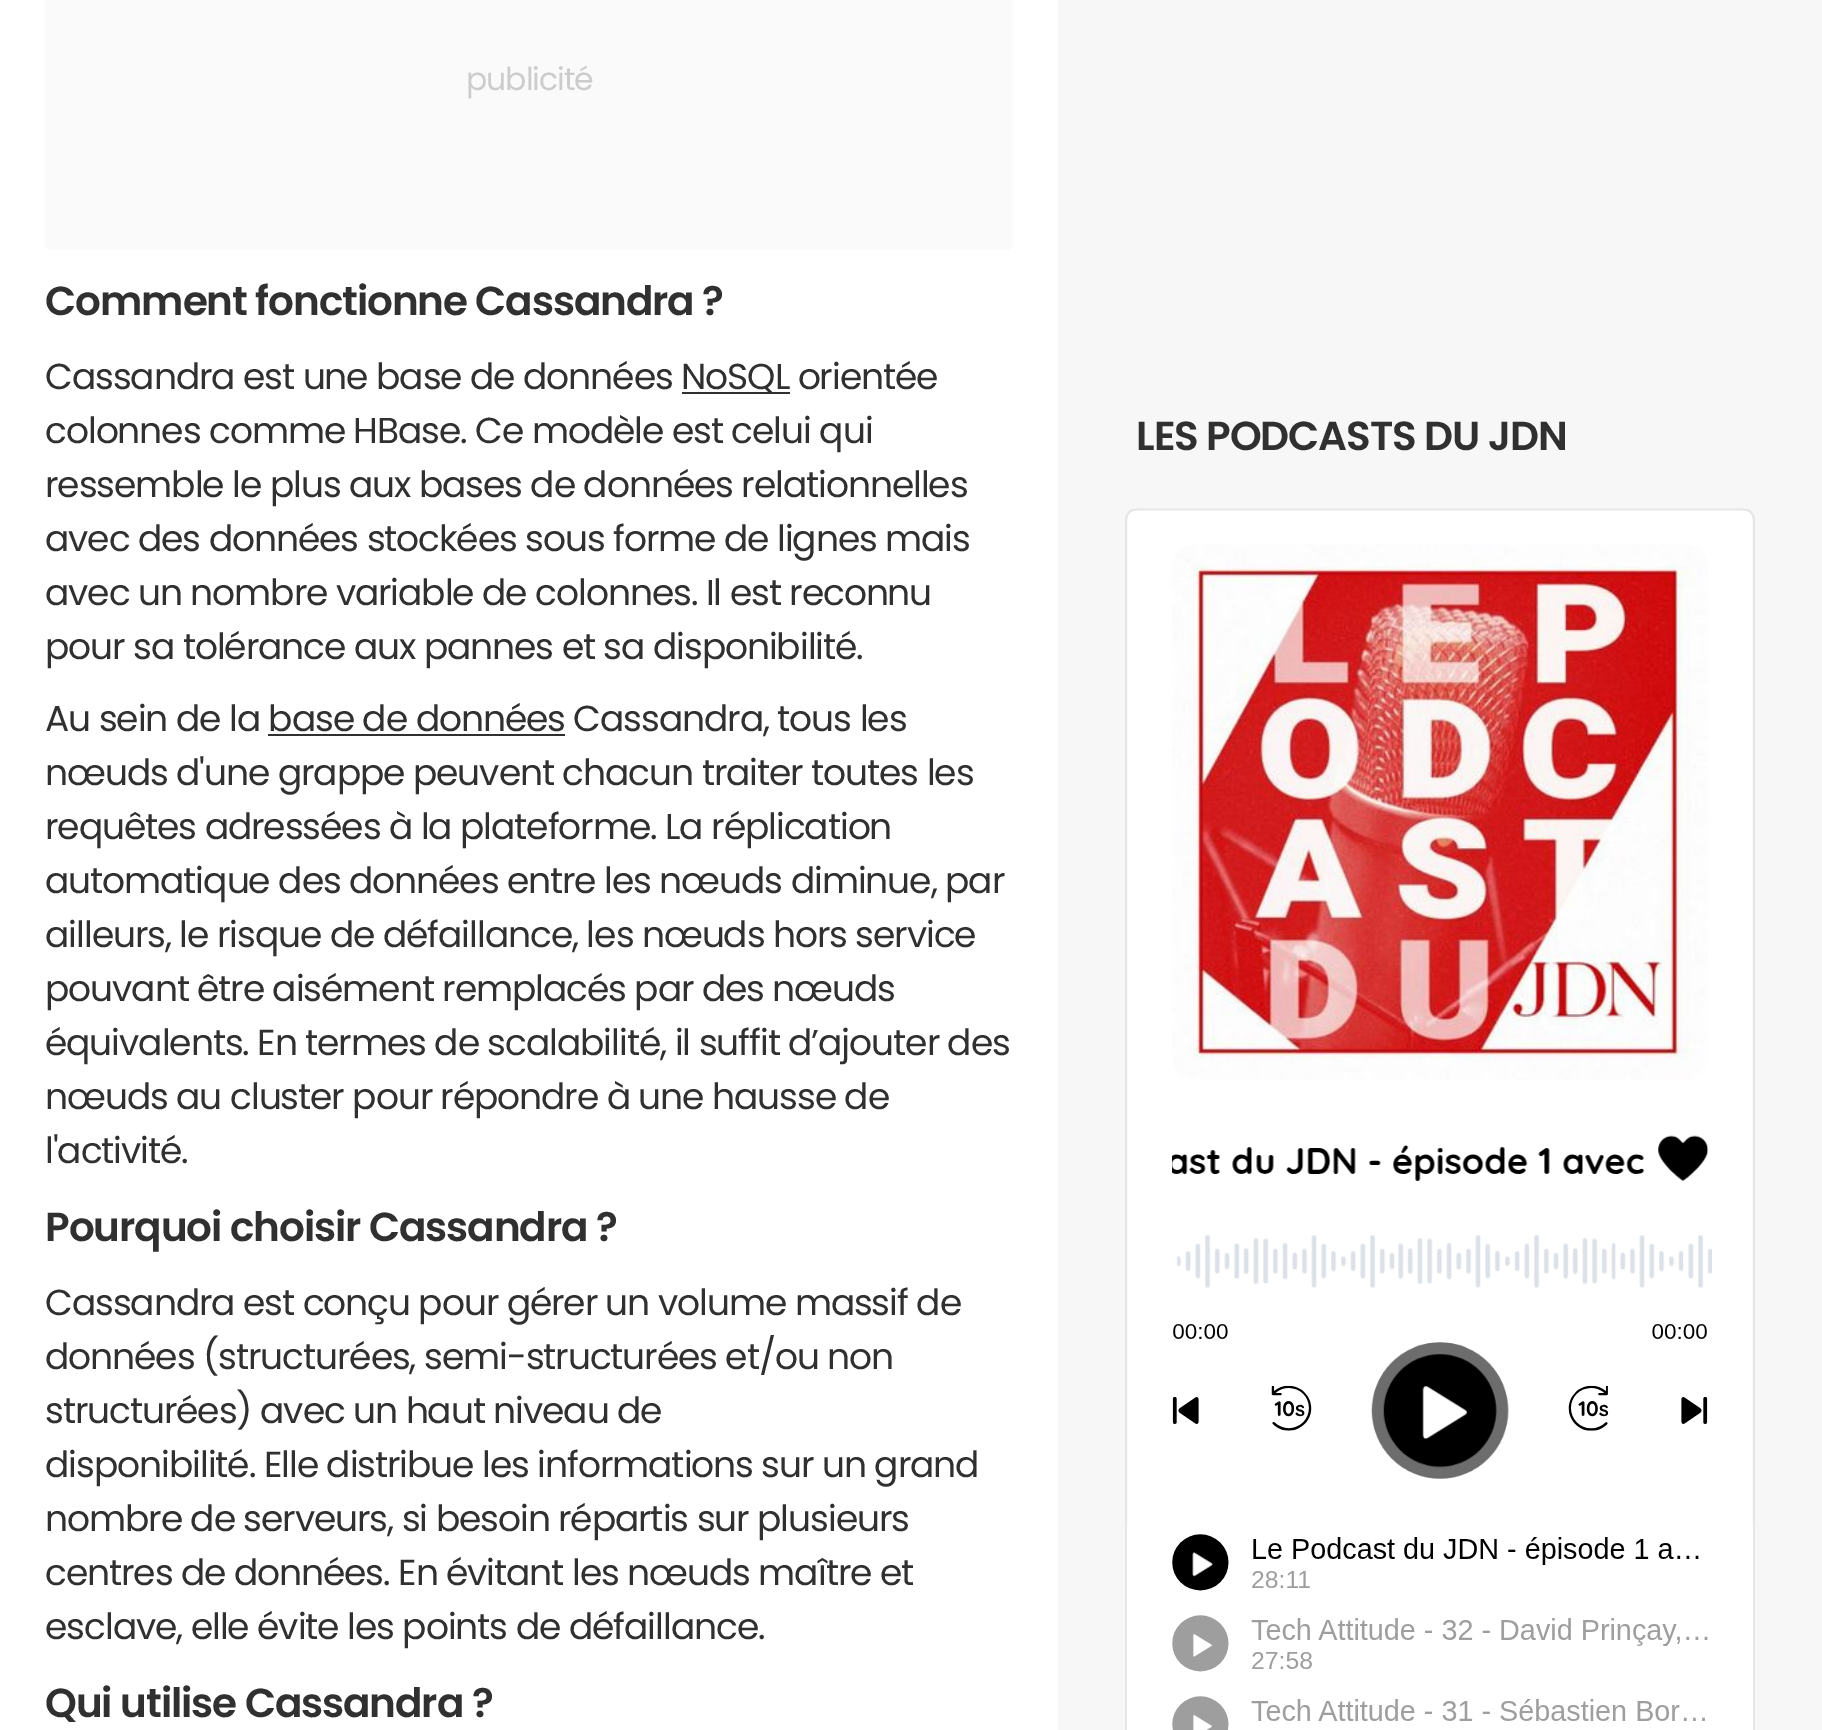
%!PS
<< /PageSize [1822 1730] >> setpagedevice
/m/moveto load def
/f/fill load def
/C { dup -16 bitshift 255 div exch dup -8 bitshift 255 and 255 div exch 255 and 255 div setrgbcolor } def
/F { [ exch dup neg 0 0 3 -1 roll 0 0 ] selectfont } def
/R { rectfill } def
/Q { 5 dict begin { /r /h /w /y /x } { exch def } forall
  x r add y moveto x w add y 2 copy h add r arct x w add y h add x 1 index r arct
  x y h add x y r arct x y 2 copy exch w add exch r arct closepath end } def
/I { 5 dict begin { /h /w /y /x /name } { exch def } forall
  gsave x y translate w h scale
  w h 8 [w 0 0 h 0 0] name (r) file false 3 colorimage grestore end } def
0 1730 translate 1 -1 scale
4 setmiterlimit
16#F7F7F7 C
0 0 1822 1730 R
16#FFFFFF C
0 0 1058 1730 R
16#FAFAFA C
45 -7 968 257 7 Q f
/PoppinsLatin-Regular 31.5 F
16#CCCCCC C
466 90 m -1.08 0 (publicité) ashow
/PoppinsLatin-SemiBold 40.5 F
16#303030 C
45 315 m -1.08 0 (Comment fonctionne Cassandra ?) ashow
/PoppinsLatin-Regular 36 F
45 389 m -1.08 0 (Cassandra est une base de données) ashow
682 392 108 2 R
681 389 m -1.08 0 (NoSQL orientée) ashow
45 443 m -1.08 0 (colonnes comme HBase. Ce modèle est celui qui) ashow
45 497 m -1.08 0 (ressemble le plus aux bases de données relationnelles) ashow
45 551 m -1.08 0 (avec des données stockées sous forme de lignes mais) ashow
45 605 m -1.08 0 (avec un nombre variable de colonnes. Il est reconnu) ashow
45 659 m -1.08 0 (pour sa tolérance aux pannes et sa disponibilité.) ashow
45 731 m -1.08 0 (Au sein de la base de données Cassandra, tous les) ashow
268 734 297 2 R
45 785 m -1.08 0 (nœuds d'une grappe peuvent chacun traiter toutes les) ashow
45 839 m -1.08 0 (requêtes adressées à la plateforme. La réplication) ashow
45 893 m -1.08 0 (automatique des données entre les nœuds diminue, par) ashow
45 947 m -1.08 0 (ailleurs, le risque de défaillance, les nœuds hors service) ashow
45 1001 m -1.08 0 (pouvant être aisément remplacés par des nœuds) ashow
45 1055 m -1.08 0 (équivalents. En termes de scalabilité, il suffit d’ajouter des) ashow
45 1109 m -1.08 0 (nœuds au cluster pour répondre à une hausse de) ashow
45 1163 m -1.08 0 (l'activité.) ashow
/PoppinsLatin-SemiBold 40.5 F
45 1241 m -1.08 0 (Pourquoi choisir Cassandra ?) ashow
/PoppinsLatin-Regular 36 F
45 1315 m -1.08 0 (Cassandra est conçu pour gérer un volume massif de) ashow
45 1369 m -1.08 0 (données \(structurées, semi-structurées et/ou non) ashow
45 1423 m -1.08 0 (structurées\) avec un haut niveau de) ashow
45 1477 m -1.08 0 (disponibilité. Elle distribue les informations sur un grand) ashow
45 1531 m -1.08 0 (nombre de serveurs, si besoin répartis sur plusieurs) ashow
45 1585 m -1.08 0 (centres de données. En évitant les nœuds maître et) ashow
45 1639 m -1.08 0 (esclave, elle évite les points de défaillance.) ashow
/PoppinsLatin-SemiBold 40.5 F
45 1717 m -1.08 0 (Qui utilise Cassandra ?) ashow
1136 450 m -1.08 0 (LES PODCASTS DU JDN) ashow
(1.rgb) 1125 508 630 1222 I
showpage
